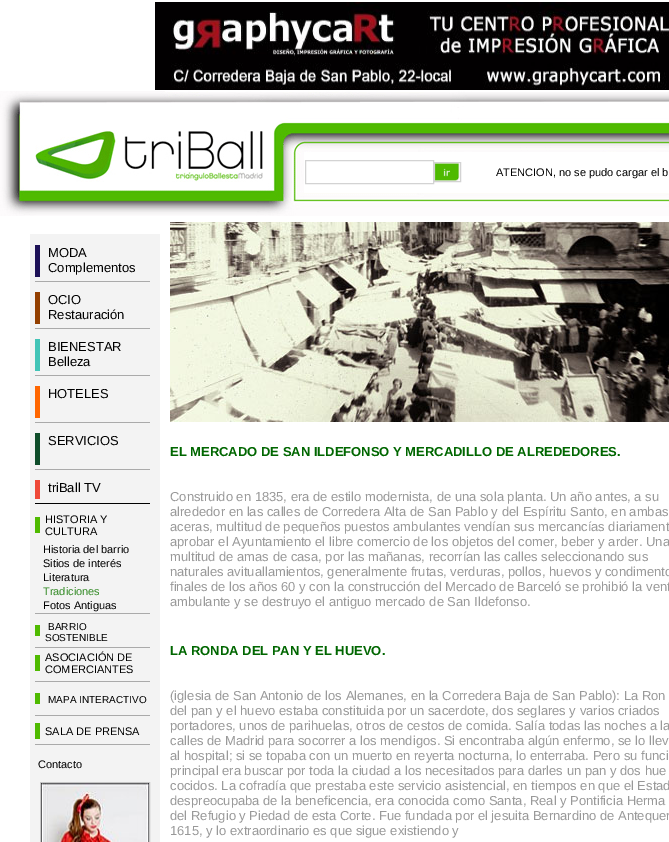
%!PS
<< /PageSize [669 842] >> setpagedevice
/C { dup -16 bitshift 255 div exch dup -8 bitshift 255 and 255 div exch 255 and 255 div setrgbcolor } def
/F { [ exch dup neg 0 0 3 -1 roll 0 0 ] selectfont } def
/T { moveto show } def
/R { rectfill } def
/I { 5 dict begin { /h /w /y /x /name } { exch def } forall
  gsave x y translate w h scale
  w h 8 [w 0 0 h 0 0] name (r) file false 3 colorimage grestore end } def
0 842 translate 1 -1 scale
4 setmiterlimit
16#FFFFFF C
0 0 669 842 R
(1.rgb) 155 2 514 88 I
(2.rgb) 0 91 669 125 I
(3.rgb) 35 130 228 57 I
16#D3D3D3 C
305.5 160.5 128 23 rectstroke
434.5 162.5 26 19 rectstroke
(4.rgb) 435 163 25 18 I
/LiberationSans-Regular 11 F
16#000000 C
(ATENCION, no se pudo cargar el b) 496 176 T
16#F3F3F3 C
30 234 130 608 R
16#1D1157 C
35 245 5 32 R
/LiberationSans-Regular 13 F
16#000000 C
(MODA) 48 257 T
(Complementos) 48 272 T
16#AAAAAA C
35 281 115 1 R
16#933F00 C
35 292 5 32 R
16#000000 C
(OCIO) 48 304 T
(Restauración) 48 319 T
16#AAAAAA C
35 328 115 1 R
16#43C4B7 C
35 339 5 32 R
16#000000 C
(BIENESTAR) 48 351 T
(Belleza) 48 366 T
16#AAAAAA C
35 375 115 1 R
16#FF6600 C
35 386 5 32 R
16#000000 C
(HOTELES) 48 398 T
16#AAAAAA C
35 422 115 1 R
16#0F4D2A C
35 433 5 32 R
16#000000 C
(SERVICIOS) 48 445 T
16#AAAAAA C
35 469 115 1 R
16#EF4939 C
35 480 5 19 R
16#000000 C
(triBall TV) 48 492 T
35 503 115 1 R
16#4FBA00 C
35 517 5 16 R
/LiberationSans-Regular 11 F
16#000000 C
(HISTORIA Y) 45 523 T
(CULTURA) 45 535 T
(Historia del barrio) 43 553 T
(Sitios de interés) 43 567 T
(Literatura) 43 581 T
16#338B26 C
(Tradiciones) 43 595 T
16#000000 C
(Fotos Antiguas) 43 609 T
16#AAAAAA C
35 613 115 1 R
16#4FBA00 C
35 625 5 11 R
/LiberationSans-Regular 10 F
16#000000 C
(BARRIO) 48 630 T
(SOSTENIBLE) 45 641 T
16#AAAAAA C
35 647 115 1 R
16#4FBA00 C
35 655 5 16 R
/LiberationSans-Regular 11 F
16#000000 C
(ASOCIACIÓN DE) 45 661 T
(COMERCIANTES) 45 673 T
16#AAAAAA C
35 681 115 1 R
16#4FBA00 C
35 693 5 11 R
/LiberationSans-Regular 10 F
16#000000 C
(MAPA INTERACTIVO) 48 703 T
16#AAAAAA C
35 715 115 1 R
16#4FBA00 C
35 723 5 16 R
/LiberationSans-Regular 11 F
16#000000 C
(SALA DE PRENSA) 45 735 T
16#AAAAAA C
35 744 115 1 R
16#000000 C
(Contacto) 38 768 T
16#C5C5C5 C
40.5 782.5 109 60 rectstroke
(5.rgb) 41 783 108 59 I
(6.rgb) 170 222 499 200 I
/LiberationSans-Bold 13 F
16#006600 C
(EL MERCADO DE SAN ILDEFONSO Y MERCADILLO DE ALREDEDORES.) 170 456 T
/LiberationSans-Regular 13 F
16#999999 C
(Construido en 1835, era de estilo modernista, de una sola planta. Un año antes, a su) 170 501 T
(alrededor en las calles de Corredera Alta de San Pablo y del Espíritu Santo, en ambas) 170 516 T
(aceras, multitud de pequeños puestos ambulantes vendían sus mercancías diariament) 170 531 T
(aprobar el Ayuntamiento el libre comercio de los objetos del comer, beber y arder. Una) 170 546 T
(multitud de amas de casa, por las mañanas, recorrían las calles seleccionando sus) 170 561 T
(naturales avituallamientos, generalmente frutas, verduras, pollos, huevos y condimento) 170 576 T
(finales de los años 60 y con la construcción del Mercado de Barceló se prohibió la vent) 170 591 T
(ambulante y se destruyo el antiguo mercado de San Ildefonso.) 170 606 T
/LiberationSans-Bold 13 F
16#006600 C
(LA RONDA DEL PAN Y EL HUEVO.) 170 655 T
/LiberationSans-Regular 13 F
16#999999 C
(\(iglesia de San Antonio de los Alemanes, en la Corredera Baja de San Pablo\): La Ron) 170 700 T
(del pan y el huevo estaba constituida por un sacerdote, dos seglares y varios criados) 170 715 T
(portadores, unos de parihuelas, otros de cestos de comida. Salía todas las noches a la) 170 730 T
(calles de Madrid para socorrer a los mendigos. Si encontraba algún enfermo, se lo llev) 170 745 T
(al hospital; si se topaba con un muerto en reyerta nocturna, lo enterraba. Pero su funci) 170 760 T
(principal era buscar por toda la ciudad a los necesitados para darles un pan y dos hue) 170 775 T
(cocidos. La cofradía que prestaba este servicio asistencial, en tiempos en que el Estad) 170 790 T
(despreocupaba de la beneficencia, era conocida como Santa, Real y Pontificia Herma) 170 805 T
(del Refugio y Piedad de esta Corte. Fue fundada por el jesuita Bernardino de Antequer) 170 820 T
(1615, y lo extraordinario es que sigue existiendo y) 170 835 T
showpage
